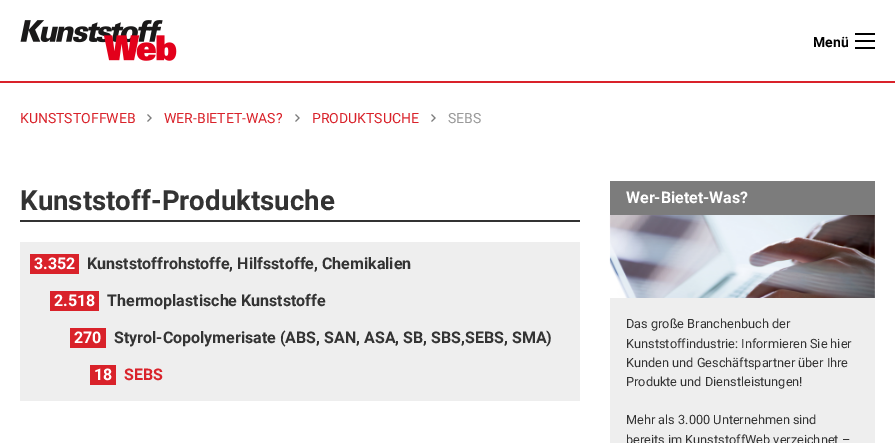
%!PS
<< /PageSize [895 443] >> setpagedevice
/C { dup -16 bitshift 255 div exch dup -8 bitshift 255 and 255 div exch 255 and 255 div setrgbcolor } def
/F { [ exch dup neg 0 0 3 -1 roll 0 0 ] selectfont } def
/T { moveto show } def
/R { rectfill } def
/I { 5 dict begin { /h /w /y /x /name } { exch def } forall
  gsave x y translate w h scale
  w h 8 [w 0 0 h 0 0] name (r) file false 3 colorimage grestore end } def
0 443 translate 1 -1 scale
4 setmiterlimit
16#FFFFFF C
0 0 895 443 R
16#D9222A C
0 81 895 2 R
(1.rgb) 20 20 157 41 I
/Roboto-Bold 14 F
16#000000 C
(Menü) 813 47 T
855 47 20 2 R
855 40 20 2 R
855 33 20 2 R
/Roboto-Regular 14 F
16#D9222A C
(KUNSTSTOFFWEB) 20 123 T
(2.rgb) 147 114 5 8 I
(WER-BIETET-WAS?) 164 123 T
(2.rgb) 295 114 5 8 I
(PRODUKTSUCHE) 312 123 T
(2.rgb) 431 114 5 8 I
16#999999 C
(SEBS) 448 123 T
16#333333 C
20 220 560 2 R
/Roboto-Bold 27.6 F
(Kunststoff-Produktsuche) 20 210 T
16#EEEEEE C
20 242 560 159 R
16#D9222A C
30 254 49 20 R
/Roboto-Bold 16 F
16#FFFFFF C
(3.352) 34 269 T
16#333333 C
(Kunststoffrohstoffe, Hilfsstoffe, Chemikalien) 87 269 T
16#D9222A C
50 291 49 20 R
16#FFFFFF C
(2.518) 54 306 T
16#333333 C
(Thermoplastische Kunststoffe) 107 306 T
16#D9222A C
70 328 36 20 R
16#FFFFFF C
(270) 74 343 T
16#333333 C
(Styrol-Copolymerisate \(ABS, SAN, ASA, SB, SBS,SEBS, SMA\)) 114 343 T
16#D9222A C
90 365 26 20 R
16#FFFFFF C
(18) 94 380 T
16#D9222A C
(SEBS) 124 380 T
16#7C7C7C C
610 181 265 34 R
16#FFFFFF C
(Wer-Bietet-Was?) 626 203 T
(3.rgb) 609 215 266 83 I
16#EEEEEE C
610 298 265 145 R
/Roboto-Regular 12.75 F
16#333333 C
(Das große Branchenbuch der) 626 328 T
(Kunststoffindustrie: Informieren Sie hier) 626 348 T
(Kunden und Geschäftspartner über Ihre) 626 367 T
(Produkte und Dienstleistungen!) 626 386 T
(Mehr als 3.000 Unternehmen sind) 626 424 T
(bereits im KunststoffWeb verzeichnet –) 626 444 T
showpage
